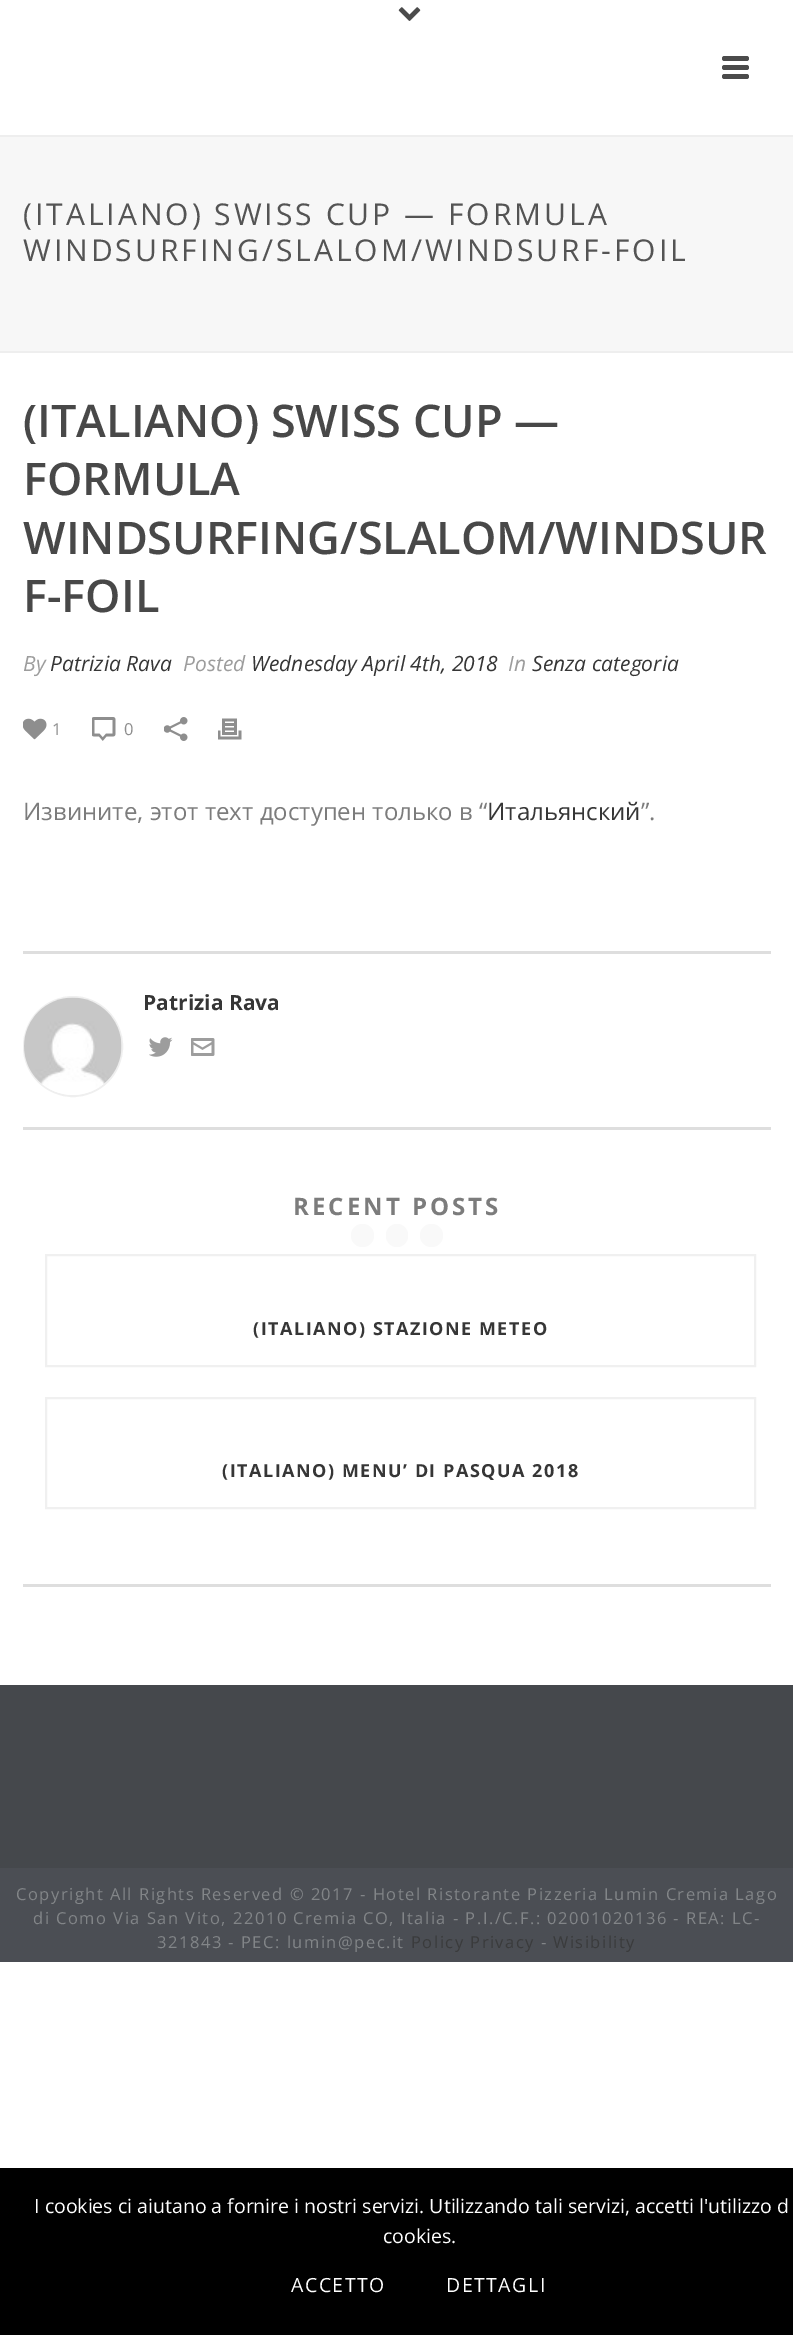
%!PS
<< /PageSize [793 2335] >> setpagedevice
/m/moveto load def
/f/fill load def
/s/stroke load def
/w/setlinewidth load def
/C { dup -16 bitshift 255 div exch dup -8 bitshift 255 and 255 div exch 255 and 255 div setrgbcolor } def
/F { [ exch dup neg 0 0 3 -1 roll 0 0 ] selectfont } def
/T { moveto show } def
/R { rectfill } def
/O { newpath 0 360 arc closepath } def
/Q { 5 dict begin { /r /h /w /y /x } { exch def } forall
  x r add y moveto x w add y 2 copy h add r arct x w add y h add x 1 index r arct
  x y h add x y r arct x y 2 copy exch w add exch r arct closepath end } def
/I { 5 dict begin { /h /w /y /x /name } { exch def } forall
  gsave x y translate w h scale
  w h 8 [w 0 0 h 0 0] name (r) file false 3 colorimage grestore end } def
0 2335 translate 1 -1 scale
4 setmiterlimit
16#FFFFFF C
0 0 793 2335 R
16#F7F7F7 C
0 137 793 214 R
16#EEEEEE C
0 351 793 2 R
0 135 793 2 R
(1.rgb) 398 7 23 14 I
16#4B4B4B C
722 56 27 5 2.5 Q f
722 65 27 5 2.5 Q f
722 74 27 5 2.5 Q f
/OpenSans-Regular 30 F
16#545454 C
23 225 m 3 0 (\(ITALIANO\) SWISS CUP — FORMULA) ashow
23 261 m 3 0 (WINDSURFING/SLALOM/WINDSURF-FOIL) ashow
/OpenSans-SemiBold 45 F
16#484848 C
(\(ITALIANO\) SWISS CUP —) 23 437 T
(FORMULA) 23 495 T
(WINDSURFING/SLALOM/WINDSUR) 23 554 T
(F-FOIL) 23 612 T
/OpenSans-Italic 21 F
16#9D9D9D C
(By) 23 671 T
16#363636 C
(Patrizia Rava) 50 671 T
16#9D9D9D C
(Posted) 183 671 T
16#363636 C
(Wednesday April 4th, 2018) 251 671 T
16#9D9D9D C
(In) 508 671 T
16#363636 C
(Senza categoria) 532 671 T
(2.rgb) 23 718 24 22 I
/OpenSans-Regular 16.5 F
16#8E8E8E C
(1) 52 735 T
(3.rgb) 92 717 24 24 I
(0) 124 735 T
(4.rgb) 164 717 24 24 I
(5.rgb) 218 718 24 22 I
/OpenSans-Regular 24 F
16#7C7C7C C
(Извините, этот техт доступен только в “) 23 820 T
16#363636 C
(Итальянский) 487 820 T
16#7C7C7C C
(”.) 641 820 T
16#DEDEDE C
23 951 748 3 R
23 1127 748 3 R
16#EFEFEF C
2 w
24 997 98 99 49 Q s
(6.rgb) 24 997 98 98 I
/OpenSans-Bold 21 F
16#363636 C
(Patrizia Rava) 143 1010 T
(7.rgb) 149 1037 24 20 I
(8.rgb) 191 1038 24 18 I
16#DEDEDE C
23 1584 748 3 R
/OpenSans-Bold 24 F
16#7C7C7C C
293 1215 m 3 0 (RECENT POSTS) ashow
16#F0F0F0 C
46 1255 709 111 rectstroke
/OpenSans-Bold 18 F
16#363636 C
253 1335 m 1.5 0 (\(ITALIANO\) STAZIONE METEO) ashow
16#F0F0F0 C
46 1398 709 110 rectstroke
16#363636 C
222 1477 m 1.5 0 (\(ITALIANO\) MENU’ DI PASQUA 2018) ashow
16#45484C C
0 1685 793 183 R
16#4B4E54 C
0 1868 793 94 R
/OpenSans-Regular 16.5 F
16#828588 C
16 1900 m 1.5 0 (Copyright All Rights Reserved © 2017 - Hotel Ristorante Pizzeria Lumin Cremia Lago) ashow
33 1924 m 1.5 0 (di Como Via San Vito, 22010 Cremia CO, Italia - P.I./C.F.: 02001020136 - REA: LC-) ashow
157 1948 m 1.5 0 (321843 - PEC: lumin@pec.it) ashow
16#3A3B3C C
411 1948 m 1.5 0 (Policy Privacy) ashow
16#828588 C
541 1948 m 1.5 0 (-) ashow
16#3A3B3C C
553 1948 m 1.5 0 (Wisibility) ashow
16#F9F9F9 C
362.5 1235.5 11.5 O f
386 1224 22 23 11 Q f
431.5 1235.5 11.5 O f
16#000000 C
0 2168 793 167 R
/OpenSans-Regular 19.5 F
16#FFFFFF C
(I cookies ci aiutano a fornire i nostri servizi. Utilizzando tali servizi, accetti l'utilizzo d) 34 2213 T
(cookies.) 383 2243 T
291 2292 m 1.5 0 (ACCETTO) ashow
446 2292 m 1.5 0 (DETTAGLI) ashow
showpage
